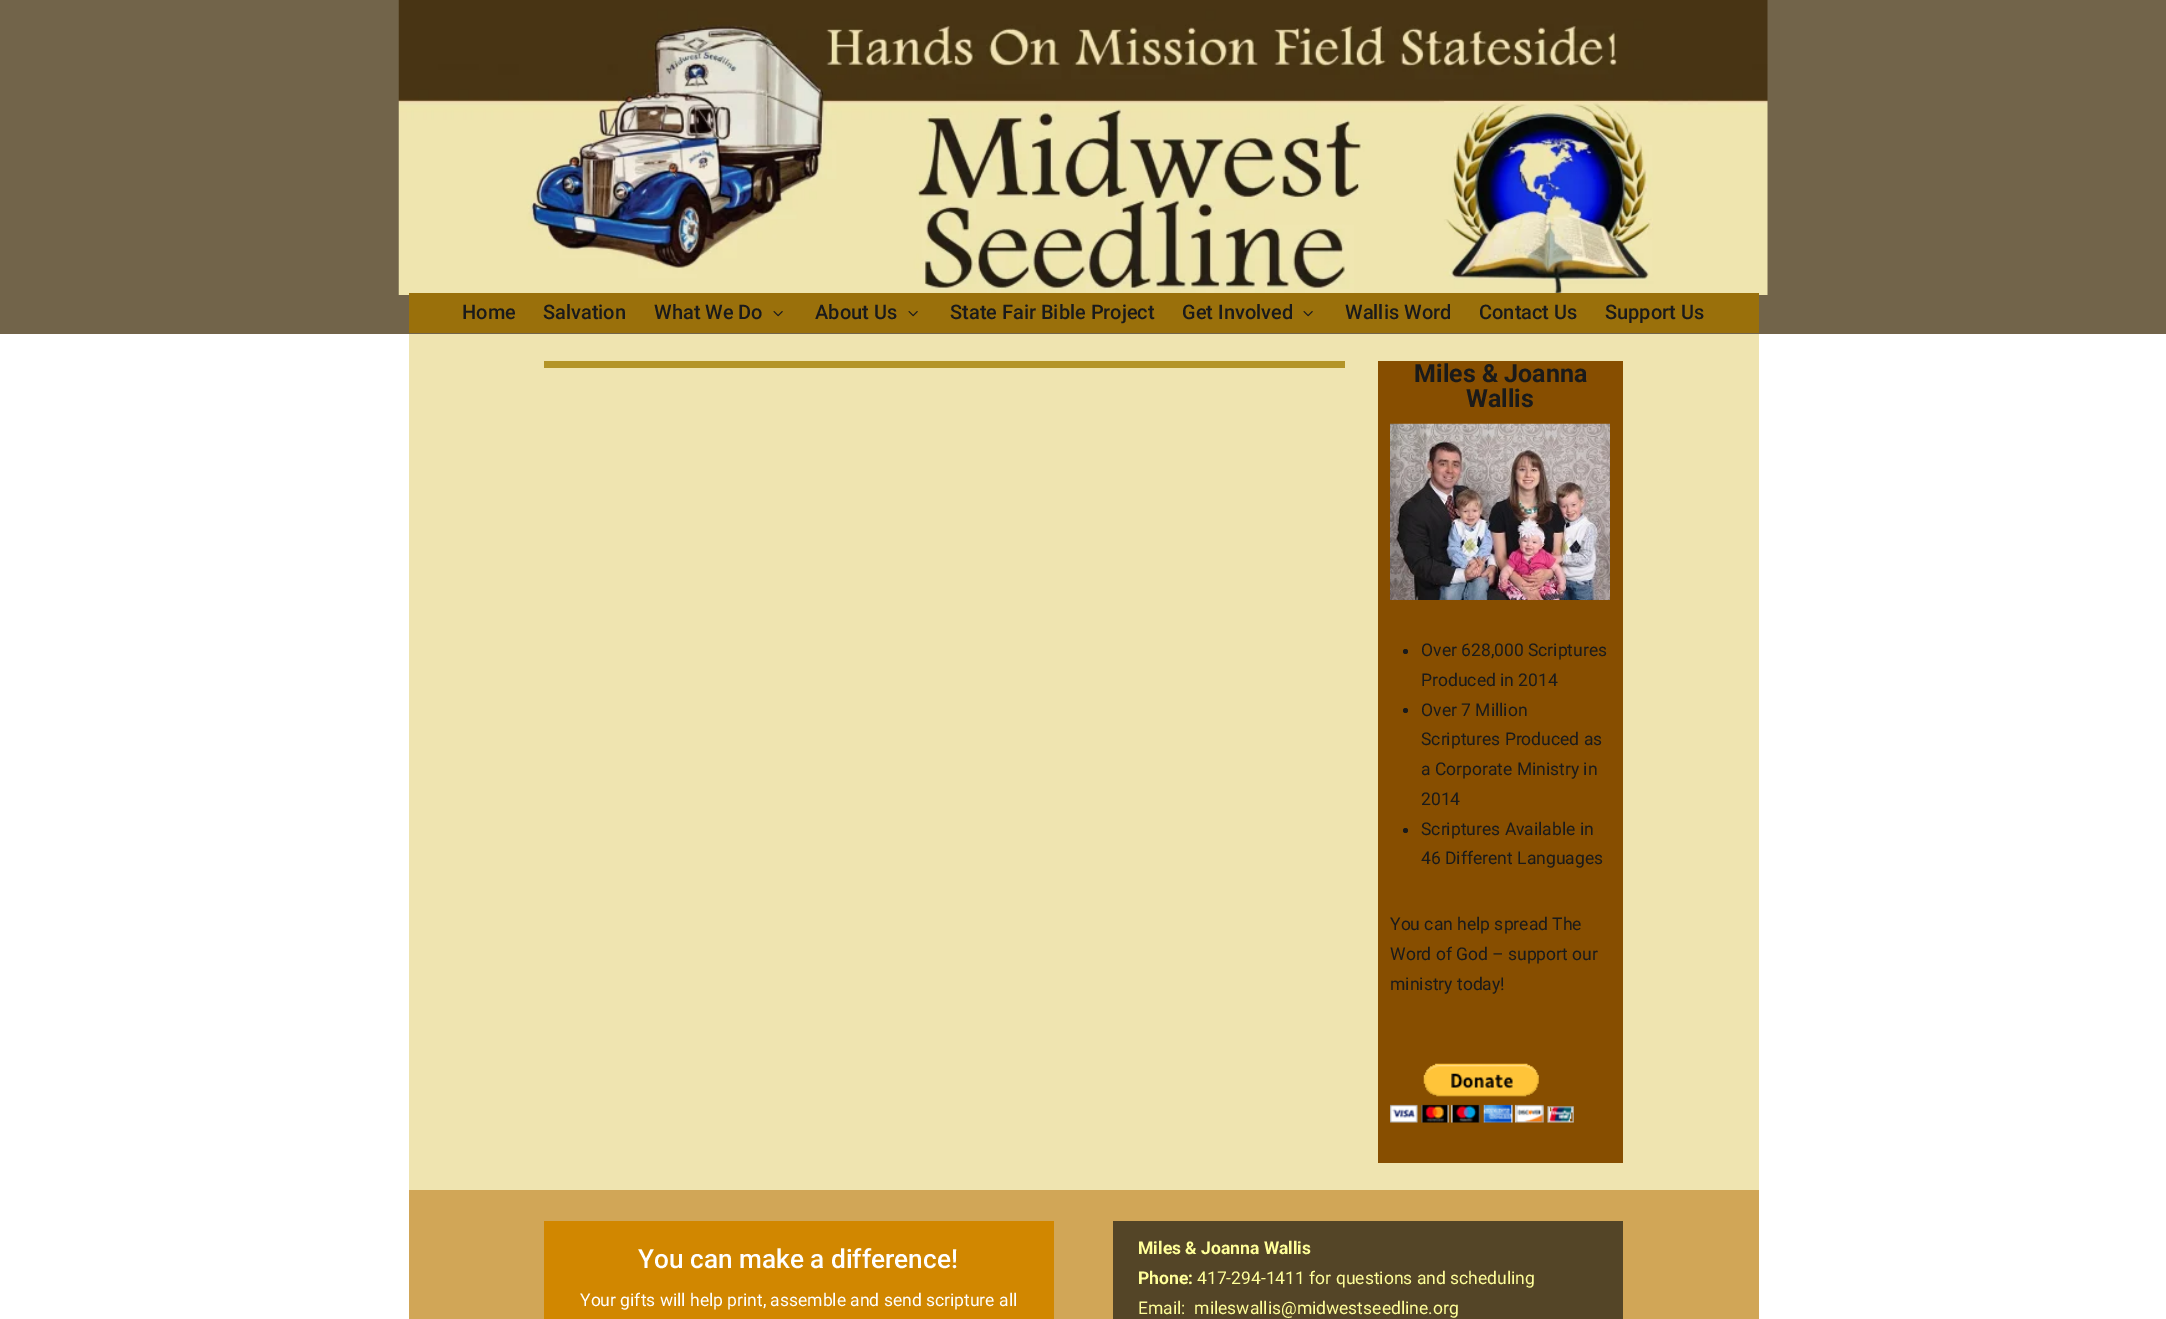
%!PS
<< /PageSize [2166 1319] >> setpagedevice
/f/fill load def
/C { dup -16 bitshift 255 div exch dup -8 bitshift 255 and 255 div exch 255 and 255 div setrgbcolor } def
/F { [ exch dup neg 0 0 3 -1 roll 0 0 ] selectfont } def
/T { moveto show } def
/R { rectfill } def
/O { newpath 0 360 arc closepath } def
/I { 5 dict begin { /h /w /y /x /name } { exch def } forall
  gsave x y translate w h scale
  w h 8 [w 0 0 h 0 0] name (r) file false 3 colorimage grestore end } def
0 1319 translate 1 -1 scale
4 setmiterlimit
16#FFFFFF C
0 0 2166 1319 R
16#72644A C
0 0 2166 334 R
(1.rgb) 398 0 1370 295 I
16#9A700B C
409 293 1350 40 R
/Roboto-Medium 20 F
16#1A1A1A C
(Home) 462 319 T
(Salvation) 543 319 T
(What We Do) 654 319 T
(2.rgb) 773 311 10 6 I
(About Us) 815 319 T
(2.rgb) 908 311 10 6 I
(State Fair Bible Project) 950 319 T
(Get Involved) 1182 319 T
(2.rgb) 1303 311 10 6 I
(Wallis Word) 1345 319 T
(Contact Us) 1479 319 T
(Support Us) 1605 319 T
16#EFE4B0 C
409 334 1350 856 R
16#B39428 C
544 361 801 7 R
16#874E00 C
1378 361 245 802 R
/Roboto-Bold 25 F
16#1A1A1A C
(Miles & Joanna) 1414 382 T
(Wallis) 1466 407 T
(3.rgb) 1390 423 220 177 I
1405.5 651.5 2.5 O f
/Roboto-Regular 17.5 F
(Over 628,000 Scriptures) 1421 656 T
(Produced in 2014) 1421 686 T
1405.5 710.5 2.5 O f
(Over 7 Million) 1421 716 T
(Scriptures Produced as) 1421 745 T
(a Corporate Ministry in) 1421 775 T
(2014) 1421 805 T
1405.5 830.5 2.5 O f
(Scriptures Available in) 1421 835 T
(46 Different Languages) 1421 864 T
(You can help spread The) 1390 930 T
(Word of God – support our) 1390 960 T
(ministry today!) 1390 990 T
(4.rgb) 1390 1063 184 60 I
16#D1A657 C
409 1190 1350 129 R
16#D18700 C
544 1221 510 98 R
/Roboto-Medium 26.25 F
16#FFFFFF C
(You can make a difference!) 638 1268 T
/Roboto-Regular 17.5 F
(Your gifts will help print, assemble and send scripture all) 580 1306 T
16#544527 C
1113 1221 510 98 R
/Roboto-Bold 17.5 F
16#FFFF99 C
(Miles & Joanna Wallis) 1138 1254 T
(Phone:) 1138 1284 T
/Roboto-Regular 17.5 F
(417-294-1411 for questions and scheduling) 1197 1284 T
(Email:  mileswallis@midwestseedline.org) 1138 1314 T
showpage
